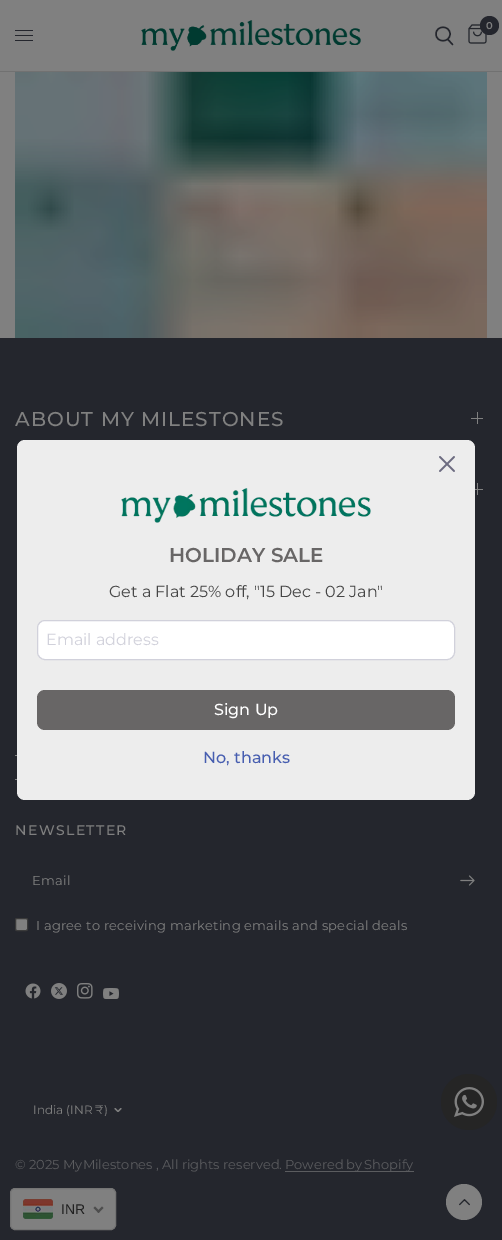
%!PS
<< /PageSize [502 1240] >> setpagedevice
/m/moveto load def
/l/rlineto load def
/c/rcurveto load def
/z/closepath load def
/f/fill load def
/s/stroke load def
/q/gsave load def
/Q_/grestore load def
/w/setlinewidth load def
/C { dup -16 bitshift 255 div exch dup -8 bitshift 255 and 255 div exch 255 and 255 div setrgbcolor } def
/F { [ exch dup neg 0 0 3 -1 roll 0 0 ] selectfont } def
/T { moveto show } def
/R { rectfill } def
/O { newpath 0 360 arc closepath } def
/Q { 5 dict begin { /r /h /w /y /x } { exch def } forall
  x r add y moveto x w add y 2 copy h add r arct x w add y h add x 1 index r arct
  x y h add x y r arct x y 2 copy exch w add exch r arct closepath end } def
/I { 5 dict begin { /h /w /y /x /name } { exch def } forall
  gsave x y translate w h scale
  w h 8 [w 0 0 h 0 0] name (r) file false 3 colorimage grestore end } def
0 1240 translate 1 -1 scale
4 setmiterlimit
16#808080 C
0 0 502 1240 R
16#717171 C
0 71 502 1 R
(1.rgb) 141 20 220 31 I
16#24262D C
1.4 w
1 setlinecap
1 setlinejoin
448 39.5 m 4.5 5 l 450 34 m 0 9 -14 9 -14 0 c 0 -9 14 -9 14 0 c z s
(2.rgb) 468 24 19 20 I
489.5 25.5 9.5 O f
/Montserrat-SemiBold 10 F
16#808080 C
(0) 486 29 T
16#24262D C
15 30 18 1 .5 Q f
15 35 18 1 .5 Q f
15 40 18 1 .5 Q f
(3.rgb) 15 72 472 266 I
0 338 502 902 R
/Montserrat-Medium 20 F
16#808080 C
15 426 m 1 0 (ABOUT MY MILESTONES) ashow
477 412 1 12 R
471 418 12 1 R
477 483 1 12 R
471 489 12 1 R
15 755 2 1 R
15 779 2 1 R
/Montserrat-Medium 14 F
15 835 m 1.4 0 (NEWSLETTER) ashow
/Montserrat-Regular 13 F
32 885 m .25 0 (Email) ashow
(4.rgb) 460 875 15 11 I
15.5 918.5 12 12 1.5 Q q f Q_
16#3B3B3B C
1 w
0 setlinecap
0 setlinejoin
s
16#808080 C
36 930 m .25 0 (I agree to receiving marketing emails and special deals) ashow
(5.rgb) 25 983 16 16 I
(6.rgb) 51 983 16 16 I
(7.rgb) 77 983 16 16 I
(8.rgb) 103 988 16 11 I
q
33 1104 76 12 rectclip
/Montserrat-Regular 12 F
(India \(INR ₹\)) 33 1114 T
Q_
1.1 w
1 setlinecap
1 setlinejoin
121 1108.5 m -3 3 l -3 -3 l s
16#5B5C5F C
(© 2025 MyMilestones , All rights reserved.) 15 1169 T
285 1171 129 1 R
285 1169 m -1 0 32 (Powered by Shopify) widthshow
16#EDEDED C
17 440 458 360 8 Q f
(9.rgb) 439 456 16 16 I
(10.rgb) 121 488 250 35 I
/Montserrat-SemiBold 20 F
16#686666 C
(HOLIDAY SALE) 169 562 T
/Montserrat-Regular 16 F
16#454545 C
(Get a Flat 25% off, "15 Dec - 02 Jan") 109 597 T
16#FFFFFF C
37.5 620.5 417 39 7.5 Q q f Q_
16#D1D1DB C
1 w
0 setlinecap
0 setlinejoin
s
(Email address) 46 645 T
16#686666 C
37 690 418 40 8 Q f
/Montserrat-Medium 16 F
16#FFFFFF C
(Sign Up) 214 715 T
16#475EB0 C
(No, thanks) 203 763 T
16#252525 C
469 1102 28 O f
(11.rgb) 454 1087 30 30 I
16#808080 C
10.5 1188.5 105 41 4.5 Q q f Q_
16#747474 C
s
(12.rgb) 23 1199 30 20 I
/LiberationSans-Regular 14 F
16#202020 C
(INR) 61 1214 T
16#4D4D4D C
102 1206.5 m 1.5 1.5 l -5 5 l -1.5 -1.5 l z f
95 1206.5 m 5 5 l -1.5 1.5 l -5 -5 l z f
16#808080 C
464 1202 18 O f
(13.rgb) 459 1199 11 7 I
showpage
